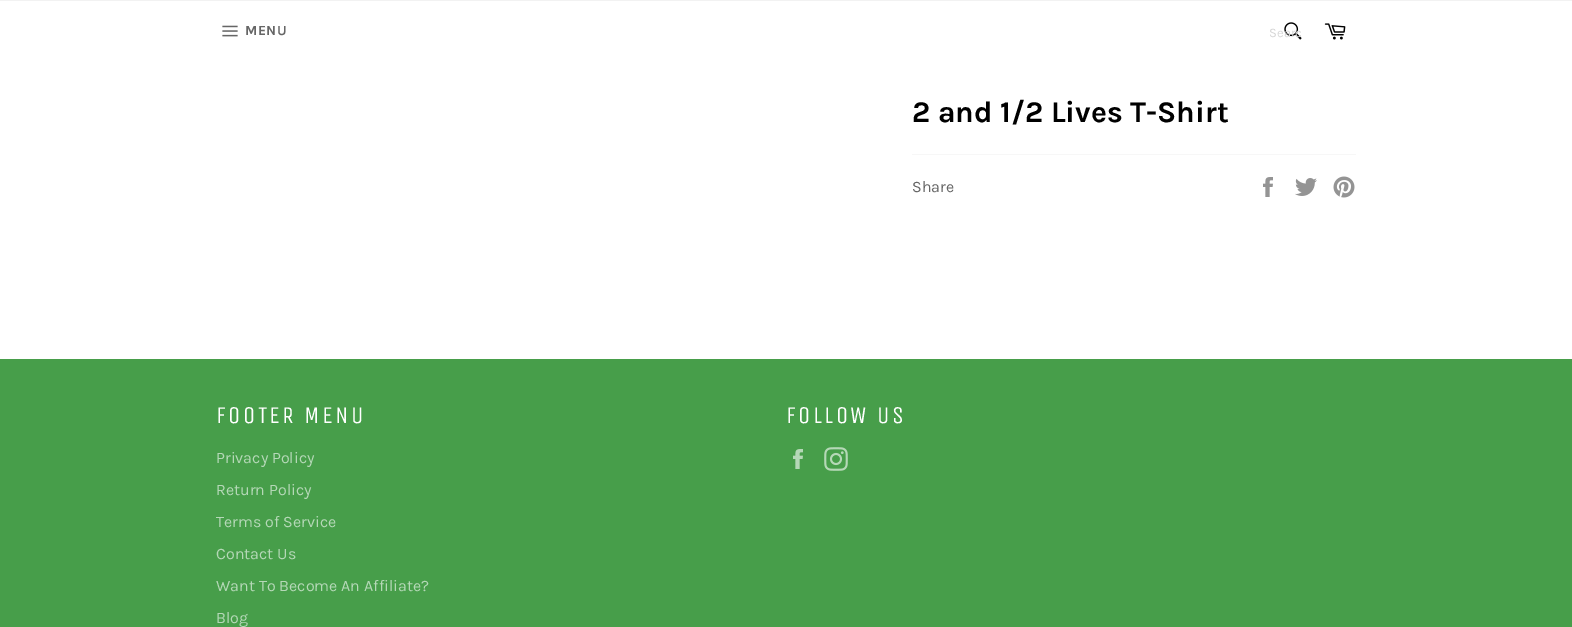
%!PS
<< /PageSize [1572 627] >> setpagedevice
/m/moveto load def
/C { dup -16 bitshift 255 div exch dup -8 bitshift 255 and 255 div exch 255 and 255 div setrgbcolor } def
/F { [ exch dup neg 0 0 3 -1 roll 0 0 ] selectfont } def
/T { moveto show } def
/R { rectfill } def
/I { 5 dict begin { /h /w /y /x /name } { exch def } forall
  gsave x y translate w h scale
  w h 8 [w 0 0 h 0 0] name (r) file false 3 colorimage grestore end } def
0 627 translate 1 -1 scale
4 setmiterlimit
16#FFFFFF C
0 0 1572 627 R
16#F2F2F2 C
0 0 1572 1 R
(1.rgb) 222 25 16 12 I
/Karla-Bold 14 F
16#666666 C
245 35 m .5 0 (MENU) ashow
(2.rgb) 1284 22 18 18 I
/Karla-Regular 13 F
16#D6D6D6 C
(Searc) 1269 37 T
(3.rgb) 1324 23 22 17 I
/Karla-Bold 30 F
16#000000 C
(2 and 1/2 Lives T-Shirt) 912 122 T
16#F7F7F7 C
912 154 444 1 R
/Karla-Regular 16 F
16#666666 C
(Share) 912 192 T
(4.rgb) 1263 177 10 20 I
(5.rgb) 1295 178 22 18 I
(6.rgb) 1333 176 22 22 I
16#479E4A C
0 359 1572 268 R
/UnicaOne-Regular 24 F
16#FFFFFF C
216 423 m 2.4 0 (FOOTER MENU) ashow
/Karla-Regular 16 F
16#B5D8B7 C
(Privacy Policy) 216 463 T
(Return Policy) 216 495 T
(Terms of Service) 216 527 T
(Contact Us) 216 559 T
(Want To Become An Affiliate?) 216 591 T
(Blog) 216 623 T
/UnicaOne-Regular 24 F
16#FFFFFF C
786 423 m 2.4 0 (FOLLOW US) ashow
(7.rgb) 793 449 10 20 I
(8.rgb) 824 447 24 24 I
showpage
